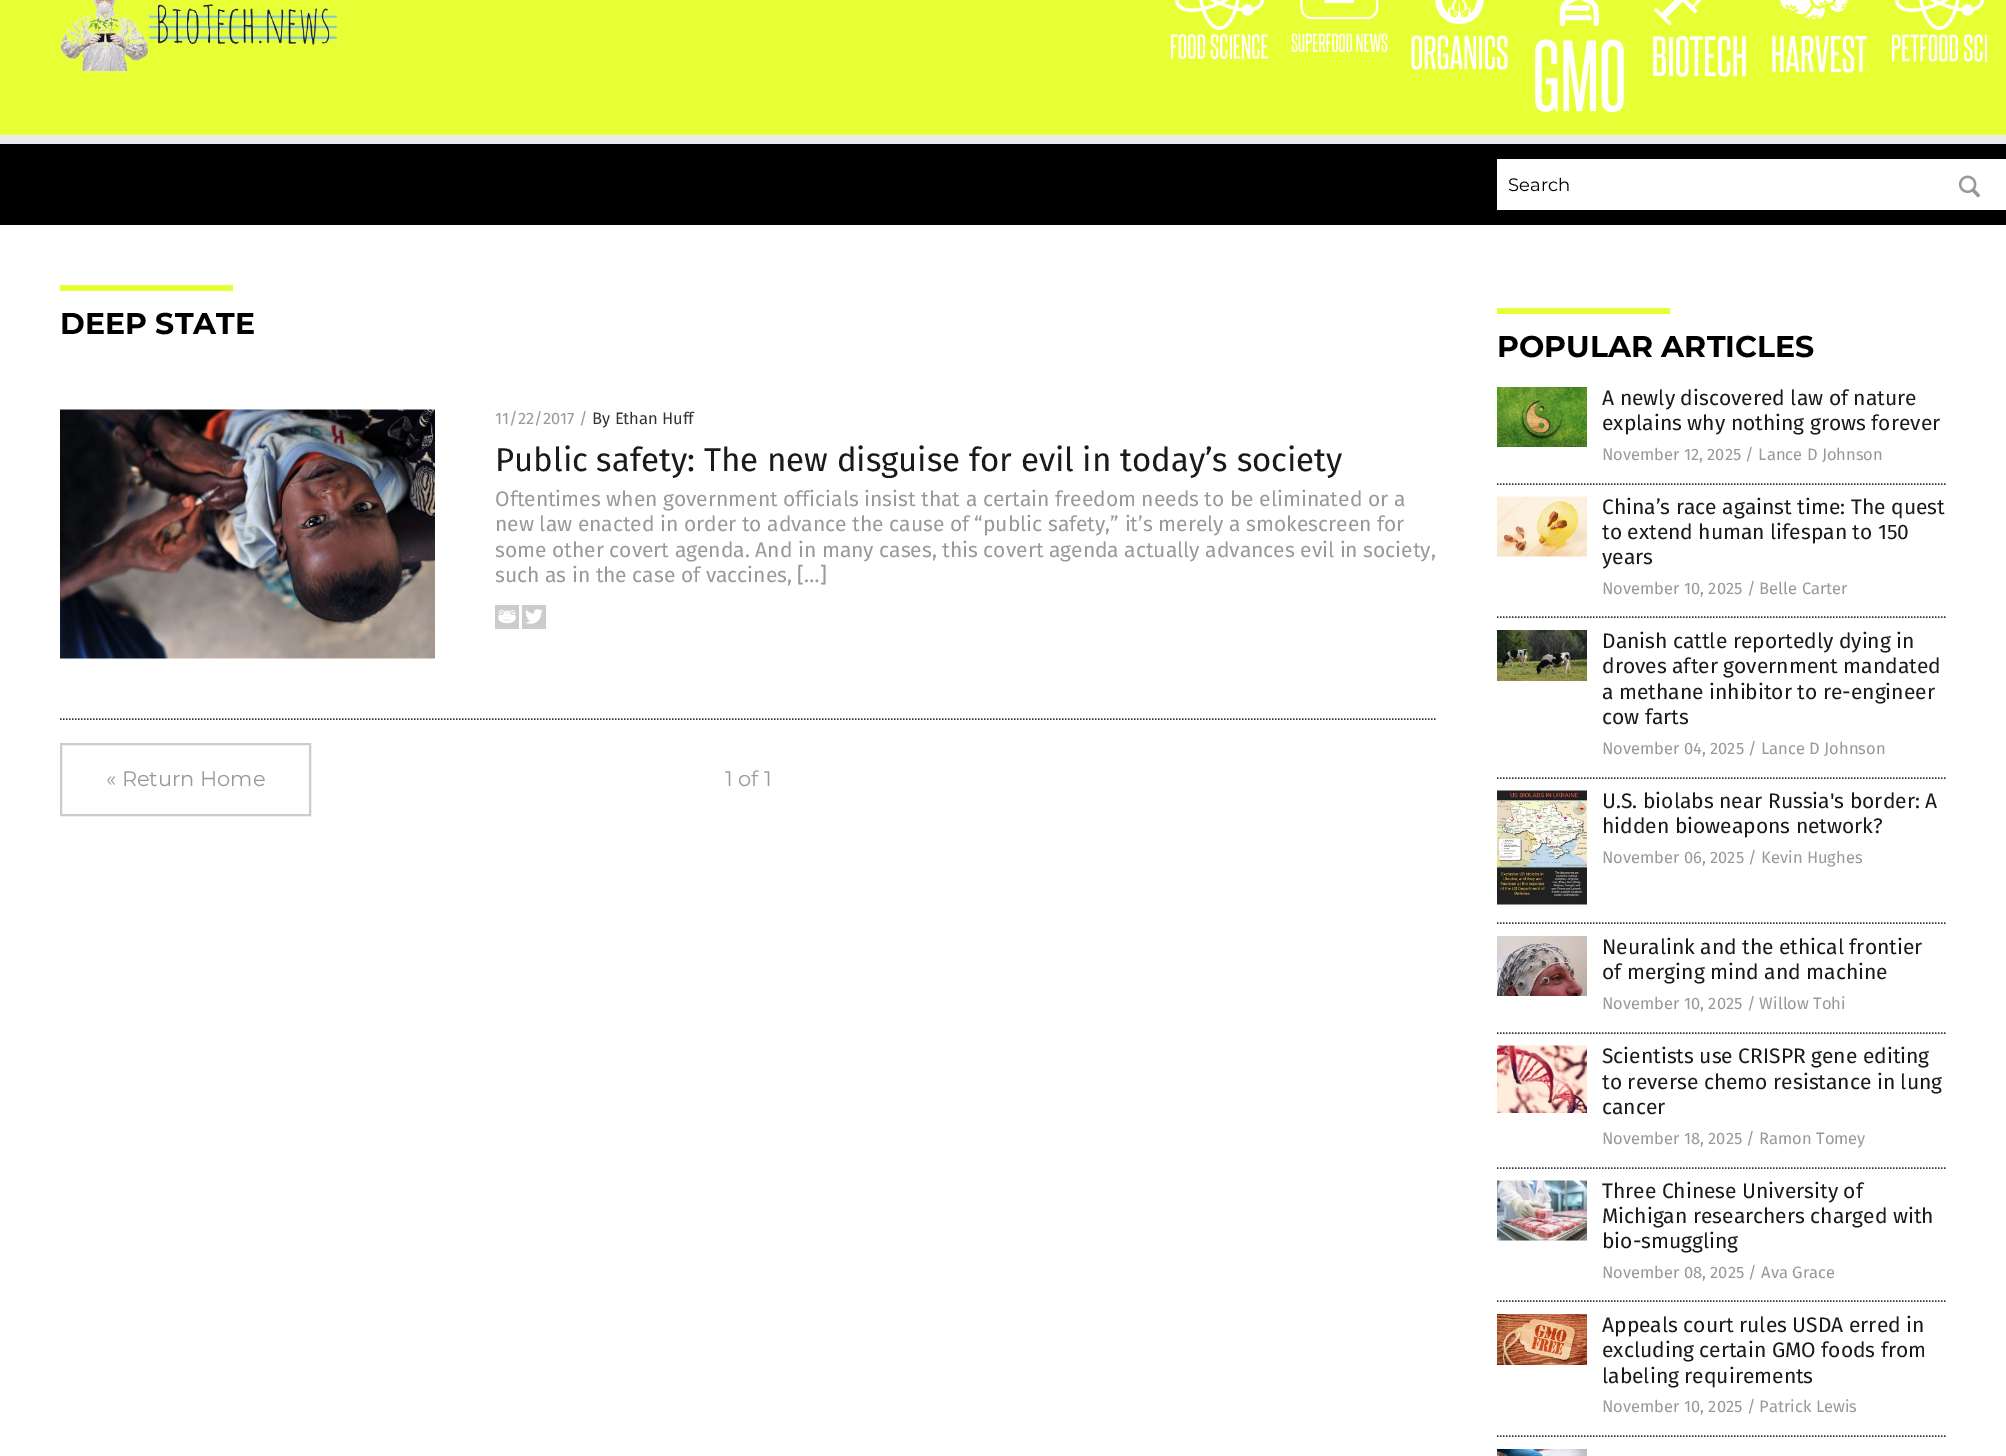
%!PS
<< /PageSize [2006 1456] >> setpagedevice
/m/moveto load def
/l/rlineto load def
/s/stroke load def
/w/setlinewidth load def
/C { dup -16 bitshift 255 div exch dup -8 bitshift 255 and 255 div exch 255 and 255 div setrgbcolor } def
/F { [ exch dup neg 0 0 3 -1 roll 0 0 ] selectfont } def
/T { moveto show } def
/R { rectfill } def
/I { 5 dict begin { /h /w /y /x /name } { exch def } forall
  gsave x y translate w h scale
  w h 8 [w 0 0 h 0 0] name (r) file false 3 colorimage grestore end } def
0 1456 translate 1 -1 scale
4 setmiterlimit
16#000000 C
0 0 2006 1456 R
16#E7FF35 C
0 0 2006 135 R
(1.rgb) 60 0 278 72 I
(2.rgb) 1175 0 89 30 I
(3.rgb) 1171 34 97 25 I
(4.rgb) 1300 0 79 20 I
(5.rgb) 1291 33 97 20 I
(6.rgb) 1435 0 49 25 I
(7.rgb) 1411 35 97 35 I
(8.rgb) 1559 0 40 26 I
(9.rgb) 1535 39 89 74 I
(10.rgb) 1654 0 48 25 I
(11.rgb) 1653 36 93 41 I
(12.rgb) 1780 0 68 19 I
(13.rgb) 1772 35 95 38 I
(14.rgb) 1895 0 89 30 I
(15.rgb) 1891 34 96 28 I
16#ECECEC C
0 135 2006 9 R
16#FFFFFF C
1497 159 509 51 R
/Montserrat-Regular 18 F
16#000000 C
(Search) 1508 191 T
(16.rgb) 1958 175 22 23 I
16#FFFFFF C
0 225 2006 1231 R
16#E7FF35 C
60 285 173 6 R
/Montserrat-Bold 30 F
16#000000 C
(DEEP STATE) 60 334 T
16#343434 C
1.5 w
[1.5 1.5] 0 setdash
60 719 m 1377 0 l s
(17.rgb) 60 409 375 250 I
/FiraSans-Regular 16.5 F
16#999999 C
(11/22/2017 /) 495 424 T
16#333333 C
(By Ethan Huff) 592 424 T
/FiraSans-Regular 33 F
16#1A1A1A C
(Public safety: The new disguise for evil in today’s society) 495 471 T
/FiraSans-Regular 21 F
16#999999 C
(Oftentimes when government officials insist that a certain freedom needs to be eliminated or a) 495 506 T
(new law enacted in order to advance the cause of “public safety,” it’s merely a smokescreen for) 495 531 T
(some other covert agenda. And in many cases, this covert agenda actually advances evil in society,) 495 557 T
(such as in the case of vaccines, […]) 495 582 T
(18.rgb) 495 605 24 24 I
(19.rgb) 522 605 24 24 I
16#CCCCCC C
2 w
[] 0 setdash
61 744 249 71 rectstroke
/Montserrat-Regular 21 F
16#999999 C
(« Return Home) 106 786 T
(1 of 1) 725 786 T
16#E7FF35 C
1497 308 173 6 R
/Montserrat-Bold 30 F
16#000000 C
(POPULAR ARTICLES) 1497 357 T
16#343434 C
1.5 w
[1.5 1.5] 0 setdash
1497 484 m 450 0 l s
(20.rgb) 1497 387 90 60 I
/FiraSans-Regular 21 F
16#1A1A1A C
(A newly discovered law of nature) 1602 405 T
(explains why nothing grows forever) 1602 430 T
/FiraSans-Regular 16.5 F
16#999999 C
(November 12, 2025 / Lance D Johnson) 1602 460 T
16#343434 C
1497 617 m 450 0 l s
(21.rgb) 1497 496 90 61 I
/FiraSans-Regular 21 F
16#1A1A1A C
(China’s race against time: The quest) 1602 514 T
(to extend human lifespan to 150) 1602 539 T
(years) 1602 564 T
/FiraSans-Regular 16.5 F
16#999999 C
(November 10, 2025 / Belle Carter) 1602 594 T
16#343434 C
1497 778 m 450 0 l s
(22.rgb) 1497 630 90 51 I
/FiraSans-Regular 21 F
16#1A1A1A C
(Danish cattle reportedly dying in) 1602 648 T
(droves after government mandated) 1602 673 T
(a methane inhibitor to re-engineer) 1602 699 T
(cow farts) 1602 724 T
/FiraSans-Regular 16.5 F
16#999999 C
(November 04, 2025 / Lance D Johnson) 1602 754 T
16#343434 C
1497 923 m 450 0 l s
(23.rgb) 1497 790 90 115 I
/FiraSans-Regular 21 F
16#1A1A1A C
(U.S. biolabs near Russia's border: A) 1602 808 T
(hidden bioweapons network?) 1602 833 T
/FiraSans-Regular 16.5 F
16#999999 C
(November 06, 2025 / Kevin Hughes) 1602 863 T
16#343434 C
1497 1033 m 450 0 l s
(24.rgb) 1497 936 90 60 I
/FiraSans-Regular 21 F
16#1A1A1A C
(Neuralink and the ethical frontier) 1602 954 T
(of merging mind and machine) 1602 979 T
/FiraSans-Regular 16.5 F
16#999999 C
(November 10, 2025 / Willow Tohi) 1602 1009 T
16#343434 C
1497 1168 m 450 0 l s
(25.rgb) 1497 1045 90 68 I
/FiraSans-Regular 21 F
16#1A1A1A C
(Scientists use CRISPR gene editing) 1602 1063 T
(to reverse chemo resistance in lung) 1602 1089 T
(cancer) 1602 1114 T
/FiraSans-Regular 16.5 F
16#999999 C
(November 18, 2025 / Ramon Tomey) 1602 1144 T
16#343434 C
1497 1301 m 450 0 l s
(26.rgb) 1497 1180 90 61 I
/FiraSans-Regular 21 F
16#1A1A1A C
(Three Chinese University of) 1602 1198 T
(Michigan researchers charged with) 1602 1223 T
(bio-smuggling) 1602 1248 T
/FiraSans-Regular 16.5 F
16#999999 C
(November 08, 2025 / Ava Grace) 1602 1278 T
16#343434 C
1497 1436 m 450 0 l s
(27.rgb) 1497 1314 90 51 I
/FiraSans-Regular 21 F
16#1A1A1A C
(Appeals court rules USDA erred in) 1602 1332 T
(excluding certain GMO foods from) 1602 1357 T
(labeling requirements) 1602 1383 T
/FiraSans-Regular 16.5 F
16#999999 C
(November 10, 2025 / Patrick Lewis) 1602 1412 T
(28.rgb) 1497 1449 90 7 I
showpage
